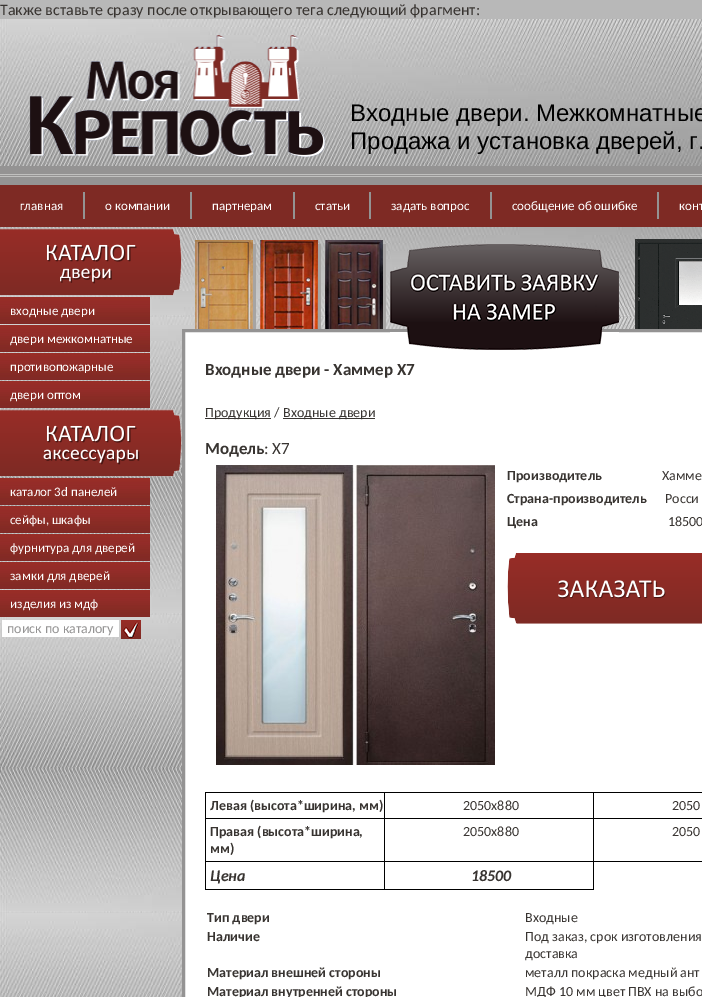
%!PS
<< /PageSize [702 997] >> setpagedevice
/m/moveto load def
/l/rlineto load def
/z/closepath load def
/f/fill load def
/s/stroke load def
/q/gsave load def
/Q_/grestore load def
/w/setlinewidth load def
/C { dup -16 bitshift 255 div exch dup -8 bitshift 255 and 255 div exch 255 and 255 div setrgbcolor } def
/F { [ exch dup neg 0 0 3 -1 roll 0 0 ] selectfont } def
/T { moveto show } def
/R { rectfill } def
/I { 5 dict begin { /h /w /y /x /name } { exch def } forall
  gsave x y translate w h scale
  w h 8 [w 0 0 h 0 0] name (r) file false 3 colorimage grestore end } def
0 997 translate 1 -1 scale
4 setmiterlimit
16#B8B8B8 C
0 0 702 997 R
/Carlito-Regular 16 F
16#383431 C
(Также вставьте сразу после открывающего тега следующий фрагмент:) 0 15 T
(1.rgb) 0 19 702 978 I
(2.rgb) 29 35 297 122 I
/LiberationSans-Regular 24 F
16#000000 C
(Входные двери. Межкомнатные) 350 121 T
(Продажа и установка дверей, г.) 350 149 T
16#949393 C
0 166 702 8 R
0 175 702 1 R
16#C0C0BF C
0 174 702 1 R
0 176 702 1 R
16#949393 C
0 177 702 8 R
16#7E2A24 C
0 185 702 42 R
/Carlito-Regular 13 F
16#FFFFFF C
(главная) 20 210 T
16#949393 C
83 192 2 27 R
16#FFFFFF C
(о компании) 105 210 T
16#949393 C
190 192 2 27 R
16#FFFFFF C
(партнерам) 212 210 T
16#949393 C
293 192 2 27 R
16#FFFFFF C
(статьи) 315 210 T
16#949393 C
369 192 2 27 R
16#FFFFFF C
(задать вопрос) 391 210 T
16#949393 C
490 192 2 27 R
16#FFFFFF C
(сообщение об ошибке) 512 210 T
16#949393 C
657 192 2 27 R
16#FFFFFF C
(конт) 679 210 T
(3.rgb) 195 240 191 89 I
183.5 330.5 m 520 0 l 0 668 l -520 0 l z q f Q_
16#949393 C
3 w
s
(4.rgb) 390 244 229 106 I
(5.rgb) 635 239 67 90 I
(6.rgb) 0 228 182 68 I
(7.rgb) 0 297 150 27 I
16#FFFFFF C
(входные двери) 10 315 T
(7.rgb) 0 325 150 27 I
(двери межкомнатные) 10 343 T
(7.rgb) 0 353 150 27 I
(противопожарные) 10 371 T
(7.rgb) 0 381 150 27 I
(двери оптом) 10 399 T
(8.rgb) 0 409 182 68 I
(7.rgb) 0 478 150 27 I
(каталог 3d панелей) 10 496 T
(7.rgb) 0 506 150 27 I
(сейфы, шкафы) 10 524 T
(7.rgb) 0 534 150 27 I
(фурнитура для дверей) 10 552 T
(7.rgb) 0 562 150 27 I
(замки для дверей) 10 580 T
(7.rgb) 0 590 150 27 I
(изделия из мдф) 10 608 T
2 620 117 17 R
/Carlito-Regular 14 F
16#949393 C
(поиск по каталогу) 7 633 T
(9.rgb) 121 620 20 19 I
/Carlito-Bold 17 F
16#383431 C
(Входные двери - Хаммер X7) 205 375 T
205 418 66 1 R
/Carlito-Regular 14 F
(Продукция /) 205 417 T
283 418 92 1 R
(Входные двери) 283 417 T
/Carlito-Bold 17 F
(Модель) 205 454 T
/Carlito-Regular 17 F
(: X7) 264 454 T
(10.rgb) 216 465 279 300 I
/Carlito-Bold 14 F
(Производитель) 507 480 T
/Carlito-Regular 14 F
(Хамме) 662 480 T
/Carlito-Bold 14 F
(Страна-производитель) 507 503 T
/Carlito-Regular 14 F
(Росси) 665 503 T
/Carlito-Bold 14 F
(Цена) 507 526 T
/Carlito-Regular 14 F
(18500) 668 526 T
(11.rgb) 507 553 195 71 I
16#000000 C
593 792 109 1 R
593 818 109 1 R
384 861 210 1 R
593 861 1 29 R
593 861 109 1 R
593 818 1 44 R
384 818 210 1 R
593 792 1 27 R
384 792 210 1 R
384 889 210 1 R
384 861 1 29 R
205 861 180 1 R
384 818 1 44 R
205 818 180 1 R
384 792 1 27 R
205 792 180 1 R
205 889 180 1 R
205 861 1 29 R
205 818 1 44 R
205 792 1 27 R
/Carlito-Bold 14 F
16#383431 C
(Левая \(высота*ширина, мм\)) 210 810 T
/Carlito-Regular 14 F
(2050x880) 463 810 T
(2050) 672 810 T
/Carlito-Bold 14 F
(Правая \(высота*ширина,) 210 836 T
(мм\)) 210 853 T
/Carlito-Regular 14 F
(2050x880) 463 836 T
(2050) 672 836 T
/Carlito-BoldItalic 16 F
(Цена) 210 881 T
(18500) 471 881 T
/Carlito-Bold 14 F
(Тип двери) 207 922 T
/Carlito-Regular 14 F
(Входные) 525 922 T
/Carlito-Bold 14 F
(Наличие) 207 941 T
/Carlito-Regular 14 F
(Под заказ, срок изготовления) 525 941 T
(доставка) 525 958 T
/Carlito-Bold 14 F
(Материал внешней стороны) 207 977 T
/Carlito-Regular 14 F
(металл покраска медный ант) 525 977 T
/Carlito-Bold 14 F
(Материал внутренней стороны) 207 996 T
/Carlito-Regular 14 F
(МДФ 10 мм цвет ПВХ на выбо) 525 996 T
showpage
